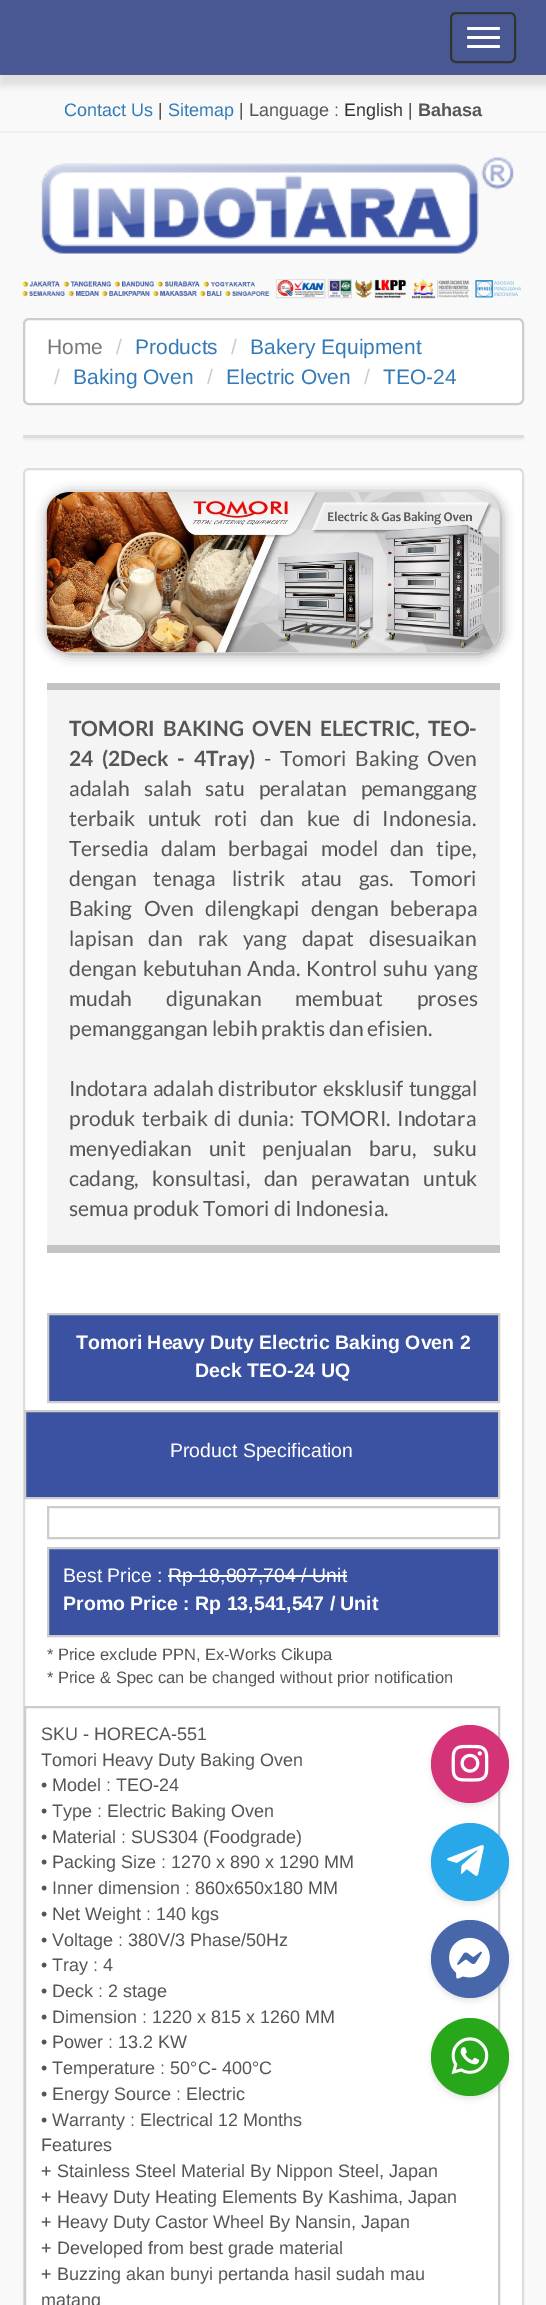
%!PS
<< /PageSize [546 2305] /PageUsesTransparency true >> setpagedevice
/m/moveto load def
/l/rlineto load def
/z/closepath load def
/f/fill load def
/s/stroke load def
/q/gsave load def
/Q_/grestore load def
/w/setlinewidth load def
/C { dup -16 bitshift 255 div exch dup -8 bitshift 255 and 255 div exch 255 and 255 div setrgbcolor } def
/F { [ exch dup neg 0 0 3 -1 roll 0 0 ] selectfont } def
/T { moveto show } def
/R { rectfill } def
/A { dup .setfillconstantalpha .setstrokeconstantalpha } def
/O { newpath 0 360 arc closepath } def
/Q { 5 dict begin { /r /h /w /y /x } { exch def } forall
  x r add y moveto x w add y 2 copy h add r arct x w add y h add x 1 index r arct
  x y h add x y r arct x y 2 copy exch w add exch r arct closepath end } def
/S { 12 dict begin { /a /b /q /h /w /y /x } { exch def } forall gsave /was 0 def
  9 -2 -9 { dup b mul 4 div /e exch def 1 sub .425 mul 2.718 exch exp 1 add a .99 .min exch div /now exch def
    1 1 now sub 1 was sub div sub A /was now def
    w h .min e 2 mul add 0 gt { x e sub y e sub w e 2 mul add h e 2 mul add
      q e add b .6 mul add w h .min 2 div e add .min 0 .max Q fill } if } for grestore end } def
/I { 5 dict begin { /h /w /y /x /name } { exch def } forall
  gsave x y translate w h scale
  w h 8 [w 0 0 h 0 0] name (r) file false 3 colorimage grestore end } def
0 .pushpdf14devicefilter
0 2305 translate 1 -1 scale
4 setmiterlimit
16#F9F9F9 C
0 0 546 2305 R
16#000000 C
-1 5 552 81 0 4 .1 S
16#495893 C
0 0 546 75 R
16#333333 C
2 w
451 13 64 49 5 Q s
16#FFFFFF C
467 27 33 3 1.5 Q f
467 36 33 3 1.5 Q f
467 45 33 3 1.5 Q f
16#EEEEEE C
0 131 546 2 R
/LiberationSans-Regular 18 F
16#337AB7 C
(Contact Us) 64 116 T
16#555555 C
(|) 158 116 T
16#337AB7 C
(Sitemap) 168 116 T
16#555555 C
(| Language :) 239 116 T
16#343333 C
(English) 344 116 T
16#555555 C
(|) 408 116 T
/LiberationSans-Bold 18 F
(Bahasa) 418 116 T
(1.rgb) 41 157 473 97 I
(2.rgb) 22 279 499 20 I
16#FFFFFF C
24 319 499 85 5 Q q f Q_
16#CCCCCC C
s
/LiberationSans-Regular 21 F
16#777777 C
(Home) 47 354 T
16#CCCCCC C
(/) 116 354 T
16#337AB7 C
(Products) 135 354 T
16#CCCCCC C
(/) 231 354 T
16#337AB7 C
(Bakery Equipment) 250 354 T
16#CCCCCC C
(/) 54 384 T
16#337AB7 C
(Baking Oven) 73 384 T
16#CCCCCC C
(/) 207 384 T
16#337AB7 C
(Electric Oven) 226 384 T
16#CCCCCC C
(/) 364 384 T
16#337AB7 C
(TEO-24) 383 384 T
16#000000 C
23 437 501 3 1.5 1 .05 S
16#DDDDDD C
23 435 501 3 1.5 Q f
16#FFFFFF C
24 469 499 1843 5 Q q f Q_
16#DDDDDD C
s
16#888888 C
48 494 453 160 23 6 1 S
(3.rgb) 46 492 454 161 I
16#C3C3C3 C
47 683 453 7 R
16#F4F4F4 C
47 690 453 555 R
/Lato-Bold 21 F
16#555555 C
69 736 m 4 0 32 (TOMORI BAKING OVEN ELECTRIC,) widthshow
(TEO-) 428 736 T
69 766 m 4.5 0 32 (24 \(2Deck - 4Tray\)) widthshow
/Lato-Regular 21 F
(-) 264 766 T
280 766 m 4.5 0 32 (Tomori Baking Oven) widthshow
69 796 m 10 0 32 (adalah salah satu peralatan pemanggang) widthshow
69 826 m 8.5 0 32 (terbaik untuk roti dan kue di Indonesia.) widthshow
69 856 m 8 0 32 (Tersedia dalam berbagai model dan tipe,) widthshow
69 886 m 12.5 0 32 (dengan tenaga listrik atau gas. Tomori) widthshow
69 916 m 7.5 0 32 (Baking Oven dilengkapi dengan beberapa) widthshow
69 946 m 11 0 32 (lapisan dan rak yang dapat disesuaikan) widthshow
69 976 m 2 0 32 (dengan kebutuhan Anda. Kontrol suhu yang) widthshow
69 1006 m 30 0 32 (mudah digunakan membuat proses) widthshow
(pemanggangan lebih praktis dan efisien.) 69 1036 T
(I) 69 1096 T
75 1096 m 1 0 32 (ndotara adalah distributor eksklusif tunggal) widthshow
69 1126 m 2.5 0 32 (produk terbaik di dunia: TOMORI. Indotara) widthshow
69 1156 m 13 0 32 (menyediakan unit penjualan baru, suku) widthshow
69 1186 m 9.5 0 32 (cadang, konsultasi, dan perawatan untuk) widthshow
(semua produk Tomori di Indonesia.) 69 1216 T
16#C3C3C3 C
47 1245 453 8 R
16#3A52A1 C
48 1314 m 451 0 l 0 88 l -451 0 l z q f Q_
16#CCCCCC C
s
/LiberationSans-Bold 19.5 F
16#FFFFFF C
(Tomori Heavy Duty Electric Baking Oven 2) 76 1349 T
(Deck TEO-24 UQ) 195 1377 T
16#3A52A1 C
25 1411 m 474 0 l 0 87 l -474 0 l z q f Q_
16#CCCCCC C
s
/LiberationSans-Regular 19.5 F
16#FFFFFF C
(Product Specification) 170 1457 T
16#CCCCCC C
48 1507 451 31 rectstroke
16#3A52A1 C
48 1548 m 451 0 l 0 88 l -451 0 l z q f Q_
16#CCCCCC C
s
16#FFFFFF C
(Best Price : Rp 18,807,704 / Unit) 63 1582 T
168 1575 179 2 R
/LiberationSans-Bold 19.5 F
(Promo Price : Rp 13,541,547 / Unit) 63 1610 T
/LiberationSans-Regular 16.5 F
16#555555 C
(* Price exclude PPN, Ex-Works Cikupa) 47 1660 T
(* Price & Spec can be changed without prior notification) 47 1683 T
16#CCCCCC C
25 1707 474 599 rectstroke
/LiberationSans-Regular 18 F
16#555555 C
(SKU - HORECA-551) 41 1740 T
(Tomori Heavy Duty Baking Oven) 41 1766 T
(• Model : TEO-24) 41 1791 T
(• Type : Electric Baking Oven) 41 1817 T
(• Material : SUS304 \(Foodgrade\)) 41 1843 T
(• Packing Size : 1270 x 890 x 1290 MM) 41 1868 T
(• Inner dimension : 860x650x180 MM) 41 1894 T
(• Net Weight : 140 kgs) 41 1920 T
(• Voltage : 380V/3 Phase/50Hz) 41 1946 T
(• Tray : 4) 41 1971 T
(• Deck : 2 stage) 41 1997 T
(• Dimension : 1220 x 815 x 1260 MM) 41 2023 T
(• Power : 13.2 KW) 41 2048 T
(• Temperature : 50°C- 400°C) 41 2074 T
(• Energy Source : Electric) 41 2100 T
(• Warranty : Electrical 12 Months) 41 2126 T
(Features) 41 2151 T
(+ Stainless Steel Material By Nippon Steel, Japan) 41 2177 T
(+ Heavy Duty Heating Elements By Kashima, Japan) 41 2203 T
(+ Heavy Duty Castor Wheel By Nansin, Japan) 41 2228 T
(+ Developed from best grade material) 41 2254 T
(+ Buzzing akan bunyi pertanda hasil sudah mau) 41 2280 T
(matang) 41 2306 T
16#000000 C
431 1728 78 78 39 3 .1 S
16#D43377 C
470 1764 39 O f
(4.rgb) 451 1744 38 38 I
16#000000 C
431 1826 78 78 39 3 .1 S
16#28A8E9 C
470 1862 39 O f
(5.rgb) 447 1845 37 31 I
16#000000 C
431 1923 78 78 39 3 .1 S
16#4867AA C
470 1959 39 O f
(6.rgb) 449 1937 41 42 I
16#000000 C
431 2021 78 78 39 3 .1 S
16#29A71A C
470 2057 39 O f
(7.rgb) 451 2037 38 38 I
.poppdf14devicefilter showpage
